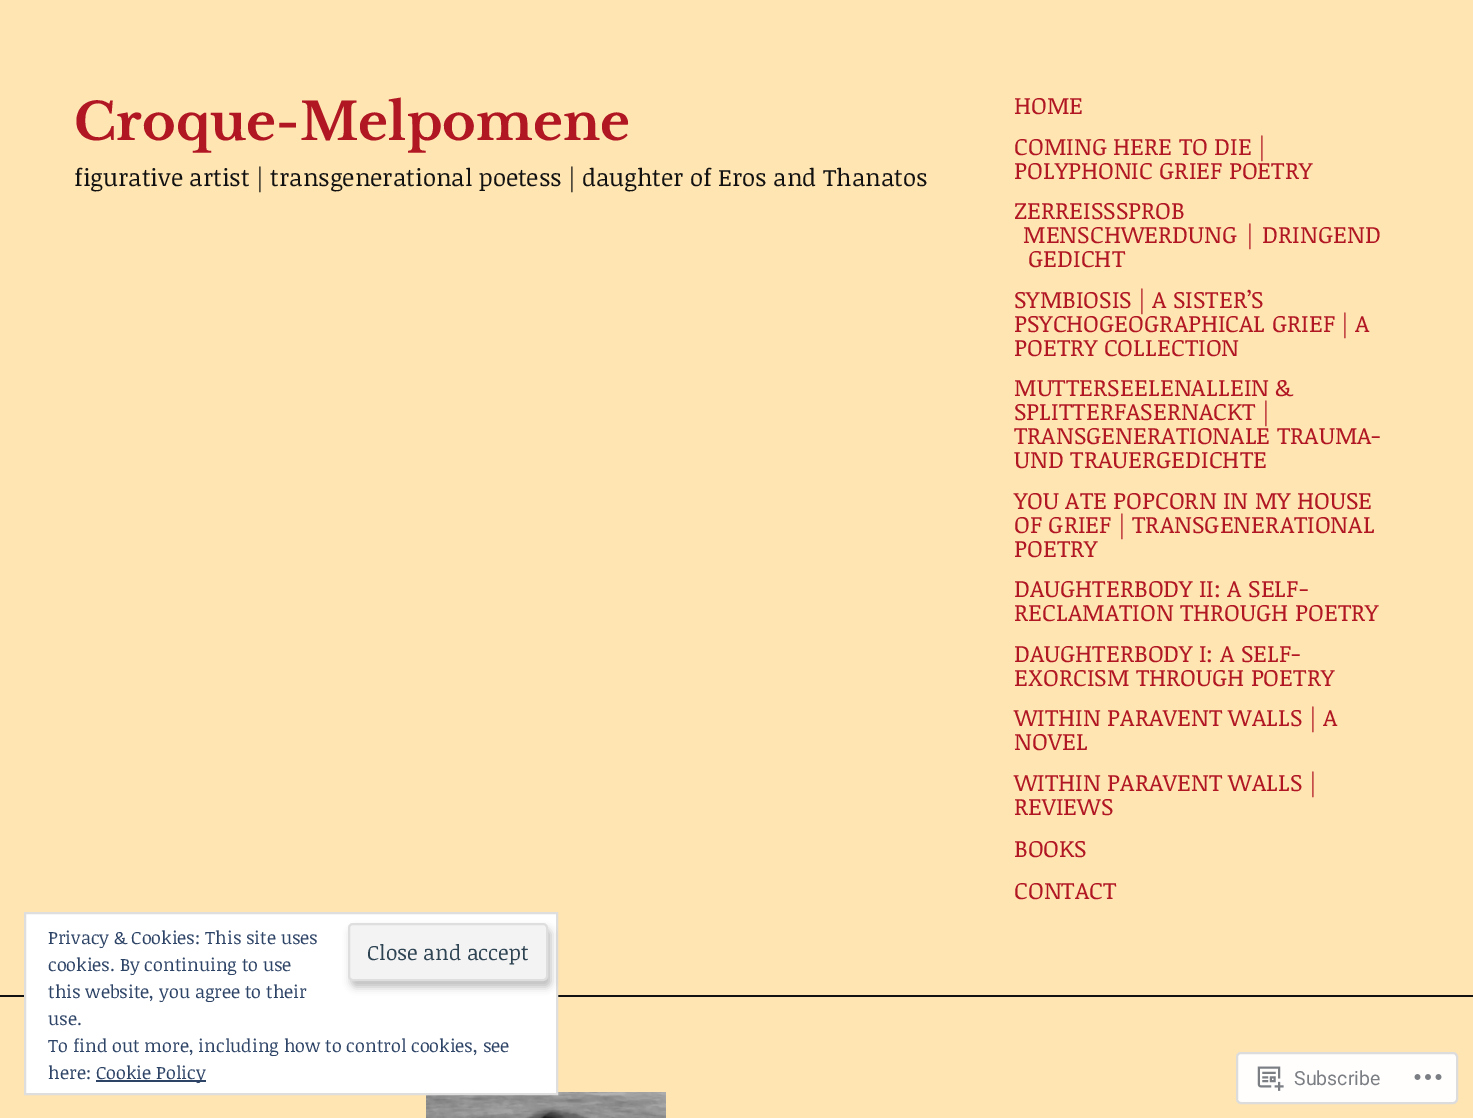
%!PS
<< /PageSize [1473 1118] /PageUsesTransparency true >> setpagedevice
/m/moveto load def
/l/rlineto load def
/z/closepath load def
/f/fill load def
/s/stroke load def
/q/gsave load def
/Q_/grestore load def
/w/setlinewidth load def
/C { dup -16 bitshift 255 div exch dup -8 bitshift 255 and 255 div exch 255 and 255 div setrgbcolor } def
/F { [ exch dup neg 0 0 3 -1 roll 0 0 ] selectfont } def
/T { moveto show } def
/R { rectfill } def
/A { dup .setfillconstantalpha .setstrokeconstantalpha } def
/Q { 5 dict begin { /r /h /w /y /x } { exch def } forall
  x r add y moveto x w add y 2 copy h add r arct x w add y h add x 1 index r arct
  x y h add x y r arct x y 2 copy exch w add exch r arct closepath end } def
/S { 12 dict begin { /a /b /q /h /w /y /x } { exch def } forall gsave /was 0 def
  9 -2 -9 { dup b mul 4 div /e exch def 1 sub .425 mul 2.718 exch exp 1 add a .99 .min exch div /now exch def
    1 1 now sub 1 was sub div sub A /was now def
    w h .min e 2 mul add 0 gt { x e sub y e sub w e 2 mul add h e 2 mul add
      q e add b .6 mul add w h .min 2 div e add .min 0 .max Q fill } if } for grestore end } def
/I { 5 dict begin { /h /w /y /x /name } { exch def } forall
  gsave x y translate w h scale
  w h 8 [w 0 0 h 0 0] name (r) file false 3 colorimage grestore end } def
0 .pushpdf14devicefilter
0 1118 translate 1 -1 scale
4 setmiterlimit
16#FFE5B2 C
0 0 1473 1118 R
/LibreBaskerville-Bold 51.25 F
16#B11623 C
(Croque-Melpomene) 74 140 T
/NoticiaText-Regular 24 F
16#111111 C
(figurative artist | transgenerational poetess | daughter of Eros and Thanatos) 74 186 T
16#B11623 C
(HOME) 1014 114 T
(COMING HERE TO DIE |) 1014 155 T
(POLYPHONIC GRIEF POETRY) 1014 179 T
(ZERREISSSPROB) 1014 219 T
1023 243 m 2 0 32 (MENSCHWERDUNG | DRINGEND) widthshow
(GEDICHT) 1028 267 T
(SYMBIOSIS | A SISTER’S) 1014 308 T
(PSYCHOGEOGRAPHICAL GRIEF | A) 1014 332 T
(POETRY COLLECTION) 1014 356 T
(MUTTERSEELENALLEIN &) 1014 396 T
(SPLITTERFASERNACKT |) 1014 420 T
(TRANSGENERATIONALE TRAUMA-) 1014 444 T
(UND TRAUERGEDICHTE) 1014 468 T
(YOU ATE POPCORN IN MY HOUSE) 1014 509 T
(OF GRIEF | TRANSGENERATIONAL) 1014 533 T
(POETRY) 1014 557 T
(DAUGHTERBODY II: A SELF-) 1014 597 T
(RECLAMATION THROUGH POETRY) 1014 621 T
(DAUGHTERBODY I: A SELF-) 1014 662 T
(EXORCISM THROUGH POETRY) 1014 686 T
(WITHIN PARAVENT WALLS | A) 1014 726 T
(NOVEL) 1014 750 T
(WITHIN PARAVENT WALLS |) 1014 791 T
(REVIEWS) 1014 815 T
(BOOKS) 1014 857 T
(CONTACT) 1014 899 T
16#111111 C
0 995 1473 2 R
(1.rgb) 426 1092 240 26 I
16#FFFFFF C
25 913 m 532 0 l 0 181 l -532 0 l z q f Q_
16#DEDEDE C
2 w
s
/NoticiaText-Regular 18 F
16#2E4467 C
(Privacy & Cookies: This site uses) 48 944 T
(cookies. By continuing to use) 48 971 T
16#000000 C
351 929 200 58 5 4 .25 S
16#F3F3F3 C
349 924 198 56 4 Q q f Q_
16#DEDEDE C
s
/NoticiaText-Regular 21 F
16#2E4453 C
(Close and accept) 367 960 T
/NoticiaText-Regular 18 F
16#2E4467 C
(this website, you agree to their) 48 998 T
(use.) 48 1025 T
(To find out more, including how to control cookies, see) 48 1052 T
(here:) 48 1079 T
96 1080 110 2 R
(Cookie Policy) 96 1079 T
16#FFFEFD C
1237 1053 220 50 4 Q q f Q_
16#DDDCDD C
s
(2.rgb) 1257 1066 27 25 I
/Roboto-Regular 19.5 F
16#7B7E83 C
(Subscribe) 1294 1085 T
(3.rgb) 1414 1074 28 6 I
.poppdf14devicefilter showpage
